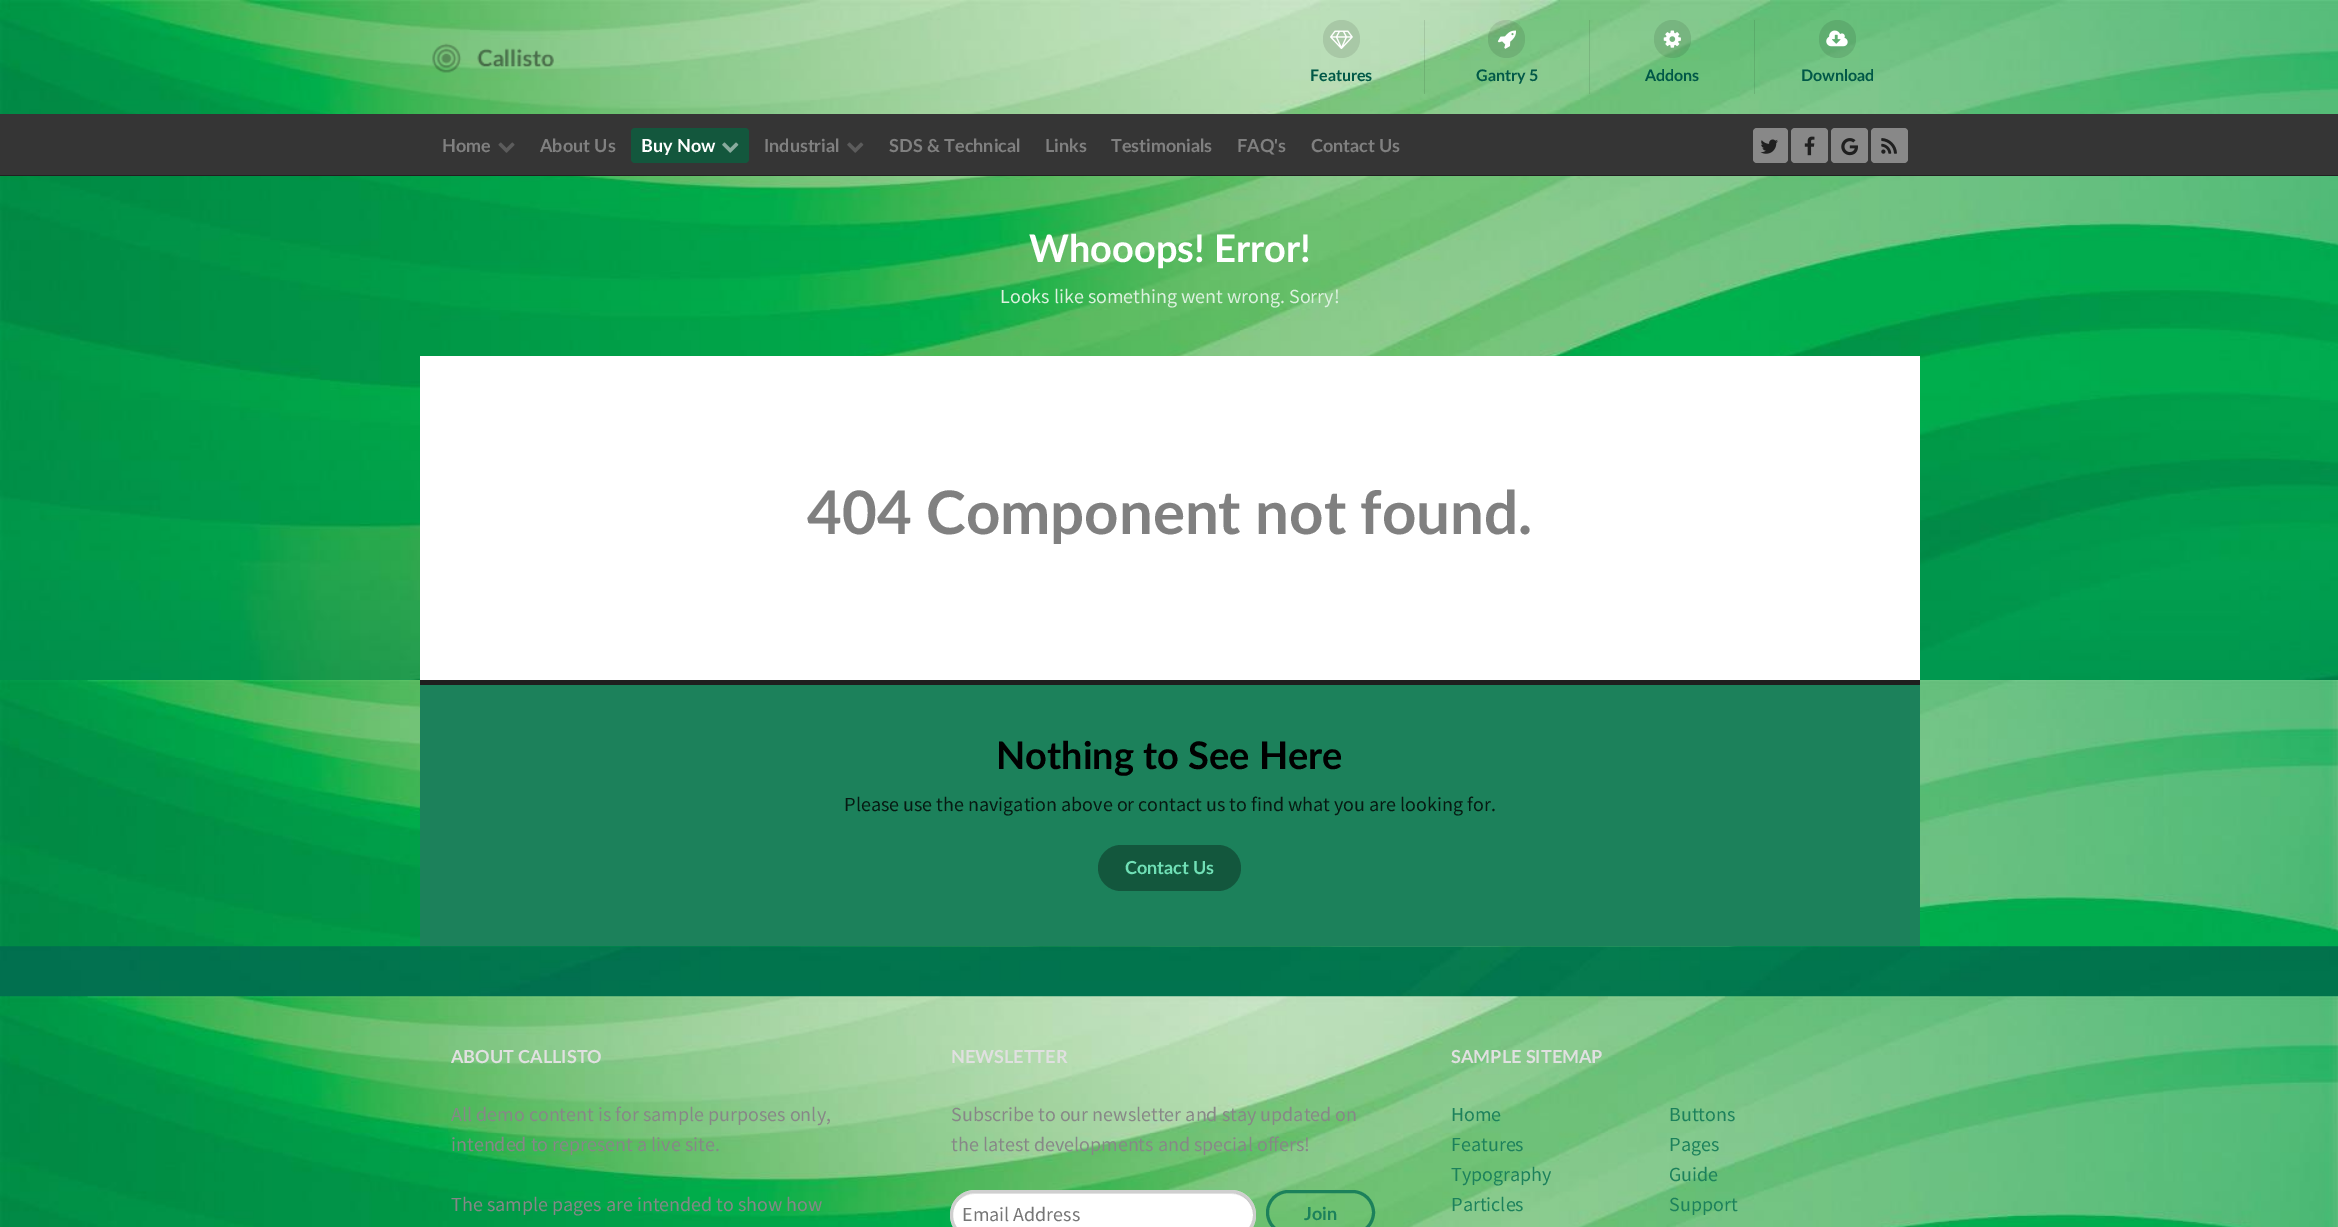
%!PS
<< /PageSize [2338 1227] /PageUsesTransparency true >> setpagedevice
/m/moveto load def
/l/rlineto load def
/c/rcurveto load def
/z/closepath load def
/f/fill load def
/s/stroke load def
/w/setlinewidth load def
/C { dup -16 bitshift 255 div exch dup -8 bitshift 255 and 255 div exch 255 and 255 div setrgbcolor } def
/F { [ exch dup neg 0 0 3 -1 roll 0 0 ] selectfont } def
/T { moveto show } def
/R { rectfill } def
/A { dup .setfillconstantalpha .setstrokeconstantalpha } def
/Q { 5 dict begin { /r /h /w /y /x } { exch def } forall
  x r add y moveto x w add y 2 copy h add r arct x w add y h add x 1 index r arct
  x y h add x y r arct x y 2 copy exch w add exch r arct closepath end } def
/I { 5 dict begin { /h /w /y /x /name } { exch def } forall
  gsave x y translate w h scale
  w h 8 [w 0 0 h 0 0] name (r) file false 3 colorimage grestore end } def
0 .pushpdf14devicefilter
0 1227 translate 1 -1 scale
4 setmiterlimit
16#FFFFFF C
0 0 2338 1227 R
(1.rgb) 0 0 2338 997 I
(2.rgb) 432 43 122 30 I
0.1 A
16#000000 C
1424 20 1 74 R
1 A
16#A8C8A6 C
1323 20 37 38 18.5 Q f
(3.rgb) 1330 30 23 19 I
/Lato-Bold 16 F
16#005847 C
(Features) 1310 81 T
0.1 A
16#000000 C
1589 20 1 74 R
1488 20 37 38 18.5 Q f
1 A
(4.rgb) 1497 30 19 19 I
16#005847 C
(Gantry 5) 1476 81 T
0.1 A
16#000000 C
1754 20 1 74 R
1654 20 37 38 18.5 Q f
1 A
(5.rgb) 1663 30 18 18 I
16#005847 C
(Addons) 1645 81 T
0.1 A
16#000000 C
1819 20 37 38 18.5 Q f
1 A
(6.rgb) 1826 30 22 17 I
16#005847 C
(Download) 1801 81 T
16#353535 C
0 114 2338 61 R
16#212121 C
0 175 2338 1 R
/Lato-Bold 18 F
16#808080 C
(Home) 442 152 T
(7.rgb) 498 142 17 11 I
(About Us) 540 152 T
16#13573D C
631 128 118 35 4 Q f
16#FFFFFF C
(Buy Now) 641 152 T
(8.rgb) 722 142 17 11 I
16#808080 C
(Industrial) 764 152 T
(9.rgb) 847 142 17 11 I
(SDS & Technical) 889 152 T
(Links) 1045 152 T
(Testimonials) 1111 152 T
(FAQ's) 1237 152 T
(Contact Us) 1311 152 T
16#888888 C
1753 128 35 35 4 Q f
(10.rgb) 1760 139 18 15 I
1791 128 37 35 4 Q f
(11.rgb) 1804 136 11 20 I
1831 128 37 35 4 Q f
(12.rgb) 1841 138 17 18 I
1871 128 37 35 4 Q f
(13.rgb) 1881 138 16 16 I
/Lato-Bold 38 F
16#FFFFFF C
(Whooops! Error!) 1029 262 T
/SourceSansPro-Regular 20 F
16#DCF1DF C
(Looks like something went wrong. Sorry!) 1000 303 T
16#FFFFFF C
420 356 1500 324 R
/Lato-Bold 60 F
16#808080 C
(404 Component not found.) 807 534 T
(14.rgb) 0 680 2338 267 I
16#1C815B C
420 685 1500 261 R
16#1F1F1F C
420 680 1500 5 R
/Lato-Bold 38 F
16#000000 C
(Nothing to See Here) 996 769 T
/SourceSansPro-Regular 20 F
16#061A12 C
(Please use the navigation above or contact us to find what you are looking for.) 844 811 T
16#13573D C
1098 845 143 46 23 Q f
/Lato-Bold 18 F
16#70E0B6 C
(Contact Us) 1125 874 T
(15.rgb) 0 996 2338 231 I
16#E0E0E0 C
(ABOUT CALLISTO) 451 1063 T
/SourceSansPro-Regular 20 F
16#878787 C
(All demo content is for sample purposes only,) 451 1121 T
(intended to represent a live site.) 451 1151 T
(The sample pages are intended to show how) 451 1211 T
/Lato-Bold 18 F
16#E0E0E0 C
(NEWSLETTER) 951 1063 T
/SourceSansPro-Regular 20 F
16#878787 C
(Subscribe to our newsletter and stay updated on) 951 1121 T
(the latest developments and special offers!) 951 1151 T
16#FFFFFF C
950 1190 306 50 25 Q f
16#ECECEC C
975 1194 m 256 0 l 13 0 23 10 23 22 c 0 -13 -10 -23 -22 -23 c -256 0 l -8 0 -15 4 -19 9 c 5 -5 11 -8 18 -8 c z f
0.4 A
16#888888 C
3 w
951.5 1191.5 303 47 23.5 Q s
1 A
16#757575 C
(Email Address) 962 1221 T
16#1C815B C
1267.5 1191.5 106 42 21 Q s
/Lato-Bold 18 F
(Join) 1304 1220 T
16#E0E0E0 C
(SAMPLE SITEMAP) 1451 1063 T
/SourceSansPro-Regular 20 F
16#1C815B C
(Home) 1451 1121 T
(Features) 1451 1151 T
(Typography) 1451 1181 T
(Particles) 1451 1211 T
(Buttons) 1669 1121 T
(Pages) 1669 1151 T
(Guide) 1669 1181 T
(Support) 1669 1211 T
.poppdf14devicefilter showpage
